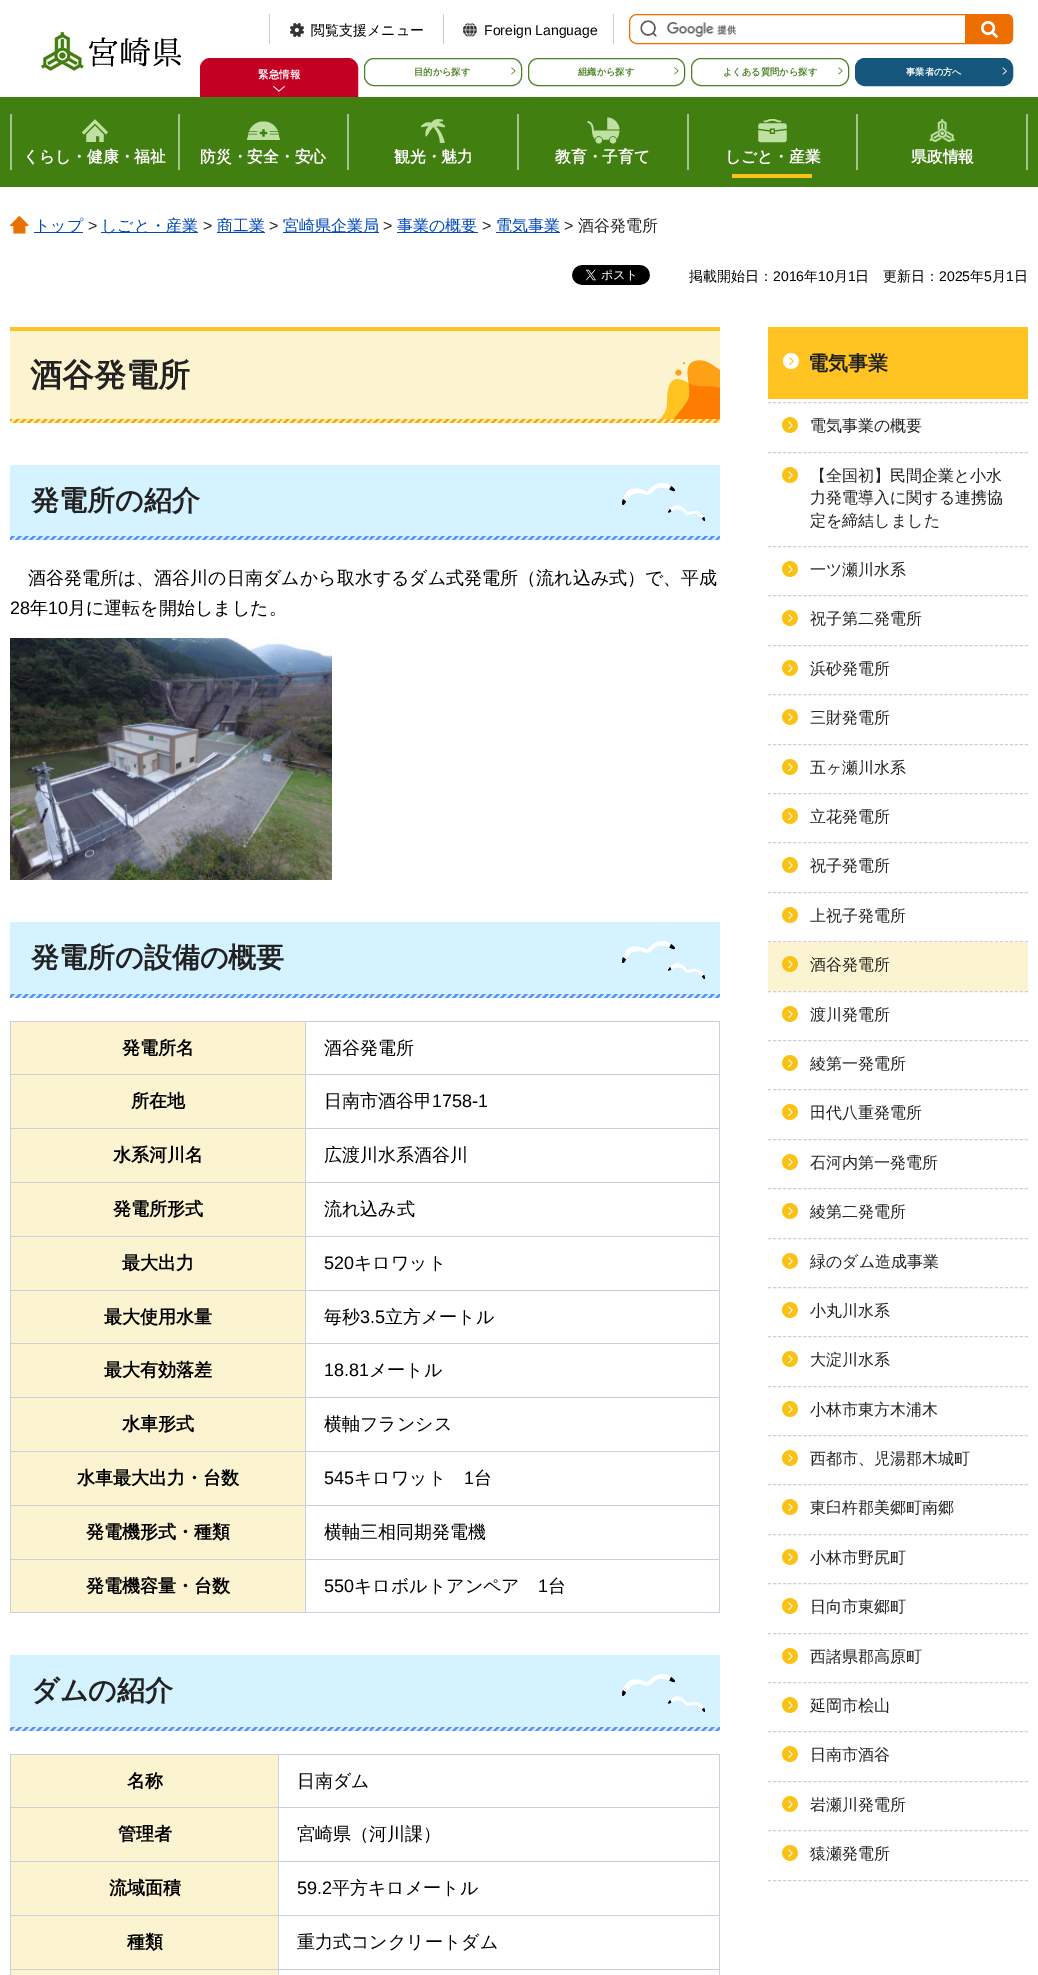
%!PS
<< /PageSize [1038 1975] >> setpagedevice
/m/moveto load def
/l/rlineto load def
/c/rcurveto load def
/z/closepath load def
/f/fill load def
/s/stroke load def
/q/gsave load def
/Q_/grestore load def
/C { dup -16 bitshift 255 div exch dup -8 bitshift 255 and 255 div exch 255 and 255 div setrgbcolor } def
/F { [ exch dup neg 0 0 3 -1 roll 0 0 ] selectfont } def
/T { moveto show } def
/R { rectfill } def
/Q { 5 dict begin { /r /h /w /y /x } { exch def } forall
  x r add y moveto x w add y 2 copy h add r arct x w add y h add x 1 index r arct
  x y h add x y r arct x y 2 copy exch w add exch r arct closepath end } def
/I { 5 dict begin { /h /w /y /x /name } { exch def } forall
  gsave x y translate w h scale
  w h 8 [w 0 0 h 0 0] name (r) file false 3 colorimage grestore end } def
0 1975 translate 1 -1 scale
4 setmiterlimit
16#FFFFFF C
0 0 1038 1975 R
(1.rgb) 41 32 140 39 I
16#CCCCCC C
443 14 1 30 R
269 14 1 30 R
(2.rgb) 290 23 14 14 I
/WenQuanYiZenHei-Medium 14 F
16#000000 C
(閲覧支援メニュー) 311 35 T
16#CCCCCC C
613 14 1 30 R
(3.rgb) 463 23 14 14 I
/LiberationSans-Regular 14 F
16#000000 C
(Foreign Language) 484 35 T
(4.rgb) 667 22 70 15 I
16#ED6F01 C
629.5 14.5 383 29 7.5 Q s
965 14 m 42 0 l 3.5 0 6 2.5 6 6 c 0 18 l 0 3.5 -2.5 6 -6 6 c -42 0 l z f
(5.rgb) 981 21 17 17 I
16#FFFFFF C
631 16 30 26 5 Q f
(6.rgb) 640 20 17 17 I
16#C30023 C
210 58.5 m 138 0 l 5 0 9.5 4.5 9.5 9.5 c 0 28.5 l -157 0 l 0 -28.5 l 0 -5 4.5 -9.5 9.5 -9.5 c z q f Q_
s
/WenQuanYiZenHei-Bold 10.5 F
16#FFFFFF C
(緊急情報) 258 78 T
(7.rgb) 273 86 12 6 I
16#4A8124 C
364.5 58.5 157 27 9.5 Q s
/WenQuanYiZenHei-Bold 9.25 F
(目的から探す) 414 75 T
(8.rgb) 511 67 5 8 I
528.5 58.5 156 27 9.5 Q s
(組織から探す) 578 75 T
(8.rgb) 674 67 5 8 I
691.5 58.5 157 27 9.5 Q s
(よくある質問から探す) 723 75 T
(8.rgb) 838 67 5 8 I
16#15567D C
855.5 58.5 157 27 9.5 Q q f Q_
s
16#FFFFFF C
(事業者の方へ) 906 75 T
(9.rgb) 1002 67 5 8 I
16#417F10 C
0 97 1038 90 R
16#A6C38F C
178 114 2 56 R
10 114 2 56 R
(10.rgb) 82 119 26 23 I
/WenQuanYiZenHei-Bold 15.75 F
16#FFFFFF C
(くらし・健康・福祉) 23 162 T
16#A6C38F C
347 114 2 56 R
(11.rgb) 247 121 33 19 I
16#FFFFFF C
(防災・安全・安心) 200 162 T
16#A6C38F C
517 114 2 56 R
(12.rgb) 421 119 24 24 I
16#FFFFFF C
(観光・魅力) 394 162 T
16#A6C38F C
687 114 2 56 R
(13.rgb) 587 117 33 27 I
16#FFFFFF C
(教育・子育て) 555 162 T
16#A6C38F C
856 114 2 56 R
(14.rgb) 758 119 29 24 I
16#FFFFFF C
(しごと・産業) 725 162 T
16#FBC114 C
732 174 80 4 R
16#A6C38F C
1026 114 2 56 R
(15.rgb) 929 119 26 23 I
16#FFFFFF C
(県政情報) 911 162 T
(16.rgb) 10 216 19 18 I
16#0049BA C
34 232 49 1 R
/WenQuanYiZenHei-Medium 16 F
(トップ) 34 231 T
/LiberationSans-Regular 16 F
16#222222 C
(>) 88 231 T
16#0049BA C
101 232 97 1 R
/WenQuanYiZenHei-Medium 16 F
(しごと・産業) 101 231 T
/LiberationSans-Regular 16 F
16#222222 C
(>) 203 231 T
16#0049BA C
217 232 48 1 R
/WenQuanYiZenHei-Medium 16 F
(商工業) 217 231 T
/LiberationSans-Regular 16 F
16#222222 C
(>) 269 231 T
16#0049BA C
283 232 96 1 R
/WenQuanYiZenHei-Medium 16 F
(宮崎県企業局) 283 231 T
/LiberationSans-Regular 16 F
16#222222 C
(>) 383 231 T
16#0049BA C
397 232 81 1 R
/WenQuanYiZenHei-Medium 16 F
(事業の概要) 397 231 T
/LiberationSans-Regular 16 F
16#222222 C
(>) 482 231 T
16#0049BA C
496 232 64 1 R
/WenQuanYiZenHei-Medium 16 F
(電気事業) 496 231 T
/LiberationSans-Regular 16 F
16#222222 C
(>) 564 231 T
/WenQuanYiZenHei-Medium 16 F
(酒谷発電所) 578 231 T
(17.rgb) 572 265 78 20 I
/WenQuanYiZenHei-Medium 14 F
16#000000 C
(掲載開始日：) 689 281 T
/LiberationSans-Regular 14 F
(2016) 773 281 T
/WenQuanYiZenHei-Medium 14 F
(年) 804 281 T
/LiberationSans-Regular 14 F
(10) 818 281 T
/WenQuanYiZenHei-Medium 14 F
(月) 834 281 T
/LiberationSans-Regular 14 F
(1) 848 281 T
/WenQuanYiZenHei-Medium 14 F
(日) 855 281 T
(更新日：) 883 281 T
/LiberationSans-Regular 14 F
(2025) 939 281 T
/WenQuanYiZenHei-Medium 14 F
(年) 970 281 T
/LiberationSans-Regular 14 F
(5) 984 281 T
/WenQuanYiZenHei-Medium 14 F
(月) 992 281 T
/LiberationSans-Regular 14 F
(1) 1006 281 T
/WenQuanYiZenHei-Medium 14 F
(日) 1014 281 T
16#FCF4D1 C
10 331 710 88 R
(18.rgb) 10 360 710 63 I
16#FFC421 C
10 327 710 4 R
/WenQuanYiZenHei-Bold 32 F
16#222222 C
(酒谷発電所) 30 386 T
16#D4F2FF C
10 465 710 75 R
(19.rgb) 10 483 710 57 I
/WenQuanYiZenHei-Bold 28 F
16#222222 C
(発電所の紹介) 31 510 T
/WenQuanYiZenHei-Medium 18 F
16#000000 C
(酒谷発電所は、酒谷川の日南ダムから取水するダム式発電所（流れ込み式）で、平成) 28 584 T
/LiberationSans-Regular 18 F
(28) 10 614 T
/WenQuanYiZenHei-Medium 18 F
(年) 30 614 T
/LiberationSans-Regular 18 F
(10) 48 614 T
/WenQuanYiZenHei-Medium 18 F
(月に運転を開始しました。) 68 614 T
(20.rgb) 10 638 322 242 I
16#D4F2FF C
10 922 710 76 R
(19.rgb) 10 941 710 57 I
/WenQuanYiZenHei-Bold 28 F
16#222222 C
(発電所の設備の概要) 31 967 T
16#CDCFDE C
10 1021 710 1 R
719 1021 1 592 R
10 1612 710 1 R
10 1021 1 592 R
16#FCF4D1 C
11 1022 294 52 R
/WenQuanYiZenHei-Bold 18 F
16#000000 C
(発電所名) 122 1054 T
16#CDCFDE C
305 1074 415 1 R
305 1128 415 1 R
305 1182 415 1 R
305 1236 415 1 R
305 1290 415 1 R
305 1343 415 1 R
305 1397 415 1 R
305 1451 415 1 R
305 1505 415 1 R
305 1559 415 1 R
305 1559 1 54 R
10 1559 296 1 R
305 1505 1 55 R
10 1505 296 1 R
305 1451 1 55 R
10 1451 296 1 R
305 1397 1 55 R
10 1397 296 1 R
305 1343 1 55 R
10 1343 296 1 R
305 1290 1 54 R
10 1290 296 1 R
305 1236 1 55 R
10 1236 296 1 R
305 1182 1 55 R
10 1182 296 1 R
305 1128 1 55 R
10 1128 296 1 R
305 1074 1 55 R
10 1074 296 1 R
305 1021 1 54 R
/WenQuanYiZenHei-Medium 18 F
16#000000 C
(酒谷発電所) 324 1054 T
16#FCF4D1 C
11 1075 294 53 R
/WenQuanYiZenHei-Bold 18 F
16#000000 C
(所在地) 131 1107 T
/WenQuanYiZenHei-Medium 18 F
(日南市酒谷甲) 324 1107 T
/LiberationSans-Regular 18 F
(1758-1) 432 1107 T
16#FCF4D1 C
11 1129 294 53 R
/WenQuanYiZenHei-Bold 18 F
16#000000 C
(水系河川名) 113 1161 T
/WenQuanYiZenHei-Medium 18 F
(広渡川水系酒谷川) 324 1161 T
16#FCF4D1 C
11 1183 294 53 R
/WenQuanYiZenHei-Bold 18 F
16#000000 C
(発電所形式) 113 1215 T
/WenQuanYiZenHei-Medium 18 F
(流れ込み式) 324 1215 T
16#FCF4D1 C
11 1237 294 53 R
/WenQuanYiZenHei-Bold 18 F
16#000000 C
(最大出力) 122 1269 T
/LiberationSans-Regular 18 F
(520) 324 1269 T
/WenQuanYiZenHei-Medium 18 F
(キロワット) 354 1269 T
16#FCF4D1 C
11 1291 294 52 R
/WenQuanYiZenHei-Bold 18 F
16#000000 C
(最大使用水量) 104 1323 T
/WenQuanYiZenHei-Medium 18 F
(毎秒) 324 1323 T
/LiberationSans-Regular 18 F
(3.5) 360 1323 T
/WenQuanYiZenHei-Medium 18 F
(立方メートル) 385 1323 T
16#FCF4D1 C
11 1344 294 53 R
/WenQuanYiZenHei-Bold 18 F
16#000000 C
(最大有効落差) 104 1376 T
/LiberationSans-Regular 18 F
(18.81) 324 1376 T
/WenQuanYiZenHei-Medium 18 F
(メートル) 369 1376 T
16#FCF4D1 C
11 1398 294 53 R
/WenQuanYiZenHei-Bold 18 F
16#000000 C
(水車形式) 122 1430 T
/WenQuanYiZenHei-Medium 18 F
(横軸フランシス) 324 1430 T
16#FCF4D1 C
11 1452 294 53 R
/WenQuanYiZenHei-Bold 18 F
16#000000 C
(水車最大出力・台数) 77 1484 T
/LiberationSans-Regular 18 F
(545) 324 1484 T
/WenQuanYiZenHei-Medium 18 F
(キロワット) 354 1484 T
/LiberationSans-Regular 18 F
(1) 464 1484 T
/WenQuanYiZenHei-Medium 18 F
(台) 474 1484 T
16#FCF4D1 C
11 1506 294 53 R
/WenQuanYiZenHei-Bold 18 F
16#000000 C
(発電機形式・種類) 86 1538 T
/WenQuanYiZenHei-Medium 18 F
(横軸三相同期発電機) 324 1538 T
16#FCF4D1 C
11 1560 294 52 R
/WenQuanYiZenHei-Bold 18 F
16#000000 C
(発電機容量・台数) 86 1592 T
/LiberationSans-Regular 18 F
(550) 324 1592 T
/WenQuanYiZenHei-Medium 18 F
(キロボルトアンペア) 354 1592 T
/LiberationSans-Regular 18 F
(1) 538 1592 T
/WenQuanYiZenHei-Medium 18 F
(台) 548 1592 T
16#D4F2FF C
10 1655 710 76 R
(19.rgb) 10 1674 710 57 I
/WenQuanYiZenHei-Bold 28 F
16#222222 C
(ダムの紹介) 31 1700 T
16#CDCFDE C
10 1754 710 1 R
719 1754 1 221 R
10 1754 1 221 R
16#FCF4D1 C
11 1755 267 52 R
/WenQuanYiZenHei-Bold 18 F
16#000000 C
(名称) 127 1787 T
16#CDCFDE C
278 1807 442 1 R
278 1861 442 1 R
278 1915 442 1 R
278 1969 442 1 R
16#FCF4D1 C
11 1970 268 5 R
16#CDCFDE C
278 1969 1 6 R
10 1969 269 1 R
278 1915 1 55 R
10 1915 269 1 R
278 1861 1 55 R
10 1861 269 1 R
278 1807 1 55 R
10 1807 269 1 R
278 1754 1 54 R
/WenQuanYiZenHei-Medium 18 F
16#000000 C
(日南ダム) 297 1787 T
16#FCF4D1 C
11 1808 267 53 R
/WenQuanYiZenHei-Bold 18 F
16#000000 C
(管理者) 118 1840 T
/WenQuanYiZenHei-Medium 18 F
(宮崎県（河川課）) 297 1840 T
16#FCF4D1 C
11 1862 267 53 R
/WenQuanYiZenHei-Bold 18 F
16#000000 C
(流域面積) 109 1894 T
/LiberationSans-Regular 18 F
(59.2) 297 1894 T
/WenQuanYiZenHei-Medium 18 F
(平方キロメートル) 332 1894 T
16#FCF4D1 C
11 1916 267 53 R
/WenQuanYiZenHei-Bold 18 F
16#000000 C
(種類) 127 1948 T
/WenQuanYiZenHei-Medium 18 F
(重力式コンクリートダム) 297 1948 T
16#FFC421 C
768 327 260 72 R
(21.rgb) 783 353 16 16 I
/WenQuanYiZenHei-Bold 20 F
16#222222 C
(電気事業) 808 370 T
16#CDCFDE C
[3 2.04] 0 setdash
768 402.5 m 260 0 l s
768 452.5 m 260 0 l s
(22.rgb) 782 417 16 16 I
/WenQuanYiZenHei-Medium 16 F
16#222222 C
(電気事業の概要) 810 431 T
16#CDCFDE C
768 546.5 m 260 0 l s
(22.rgb) 782 467 16 16 I
16#222222 C
(【全国初】民間企業と小水) 810 481 T
(力発電導入に関する連携協) 810 503 T
(定を締結しました) 810 526 T
16#CDCFDE C
768 595.5 m 260 0 l s
(22.rgb) 782 561 16 16 I
16#222222 C
(一ツ瀬川水系) 810 575 T
16#CDCFDE C
768 645.5 m 260 0 l s
(22.rgb) 782 610 16 16 I
16#222222 C
(祝子第二発電所) 810 624 T
16#CDCFDE C
768 694.5 m 260 0 l s
(22.rgb) 782 660 16 16 I
16#222222 C
(浜砂発電所) 810 674 T
16#CDCFDE C
768 744.5 m 260 0 l s
(22.rgb) 782 709 16 16 I
16#222222 C
(三財発電所) 810 723 T
16#CDCFDE C
768 793.5 m 260 0 l s
(22.rgb) 782 759 16 16 I
16#222222 C
(五ヶ瀬川水系) 810 773 T
16#CDCFDE C
768 842.5 m 260 0 l s
(22.rgb) 782 808 16 16 I
16#222222 C
(立花発電所) 810 822 T
16#CDCFDE C
768 892.5 m 260 0 l s
(22.rgb) 782 857 16 16 I
16#222222 C
(祝子発電所) 810 871 T
16#CDCFDE C
768 941.5 m 260 0 l s
(22.rgb) 782 907 16 16 I
16#222222 C
(上祝子発電所) 810 921 T
16#CDCFDE C
768 991.5 m 260 0 l s
16#FCF4D1 C
768 942 260 49 R
(23.rgb) 782 956 16 16 I
16#222222 C
(酒谷発電所) 810 970 T
16#CDCFDE C
768 1040.5 m 260 0 l s
(22.rgb) 782 1006 16 16 I
16#222222 C
(渡川発電所) 810 1020 T
16#CDCFDE C
768 1089.5 m 260 0 l s
(22.rgb) 782 1055 16 16 I
16#222222 C
(綾第一発電所) 810 1069 T
16#CDCFDE C
768 1139.5 m 260 0 l s
(22.rgb) 782 1104 16 16 I
16#222222 C
(田代八重発電所) 810 1118 T
16#CDCFDE C
768 1188.5 m 260 0 l s
(22.rgb) 782 1154 16 16 I
16#222222 C
(石河内第一発電所) 810 1168 T
16#CDCFDE C
768 1238.5 m 260 0 l s
(22.rgb) 782 1203 16 16 I
16#222222 C
(綾第二発電所) 810 1217 T
16#CDCFDE C
768 1287.5 m 260 0 l s
(22.rgb) 782 1253 16 16 I
16#222222 C
(緑のダム造成事業) 810 1267 T
16#CDCFDE C
768 1336.5 m 260 0 l s
(22.rgb) 782 1302 16 16 I
16#222222 C
(小丸川水系) 810 1316 T
16#CDCFDE C
768 1386.5 m 260 0 l s
(22.rgb) 782 1351 16 16 I
16#222222 C
(大淀川水系) 810 1365 T
16#CDCFDE C
768 1435.5 m 260 0 l s
(22.rgb) 782 1401 16 16 I
16#222222 C
(小林市東方木浦木) 810 1415 T
16#CDCFDE C
768 1484.5 m 260 0 l s
(22.rgb) 782 1450 16 16 I
16#222222 C
(西都市、児湯郡木城町) 810 1464 T
16#CDCFDE C
768 1534.5 m 260 0 l s
(22.rgb) 782 1499 16 16 I
16#222222 C
(東臼杵郡美郷町南郷) 810 1513 T
16#CDCFDE C
768 1583.5 m 260 0 l s
(22.rgb) 782 1549 16 16 I
16#222222 C
(小林市野尻町) 810 1563 T
16#CDCFDE C
768 1633.5 m 260 0 l s
(22.rgb) 782 1598 16 16 I
16#222222 C
(日向市東郷町) 810 1612 T
16#CDCFDE C
768 1682.5 m 260 0 l s
(22.rgb) 782 1648 16 16 I
16#222222 C
(西諸県郡高原町) 810 1662 T
16#CDCFDE C
768 1731.5 m 260 0 l s
(22.rgb) 782 1697 16 16 I
16#222222 C
(延岡市桧山) 810 1711 T
16#CDCFDE C
768 1781.5 m 260 0 l s
(22.rgb) 782 1746 16 16 I
16#222222 C
(日南市酒谷) 810 1760 T
16#CDCFDE C
768 1830.5 m 260 0 l s
(22.rgb) 782 1796 16 16 I
16#222222 C
(岩瀬川発電所) 810 1810 T
16#CDCFDE C
768 1880.5 m 260 0 l s
(22.rgb) 782 1845 16 16 I
16#222222 C
(猿瀬発電所) 810 1859 T
showpage
